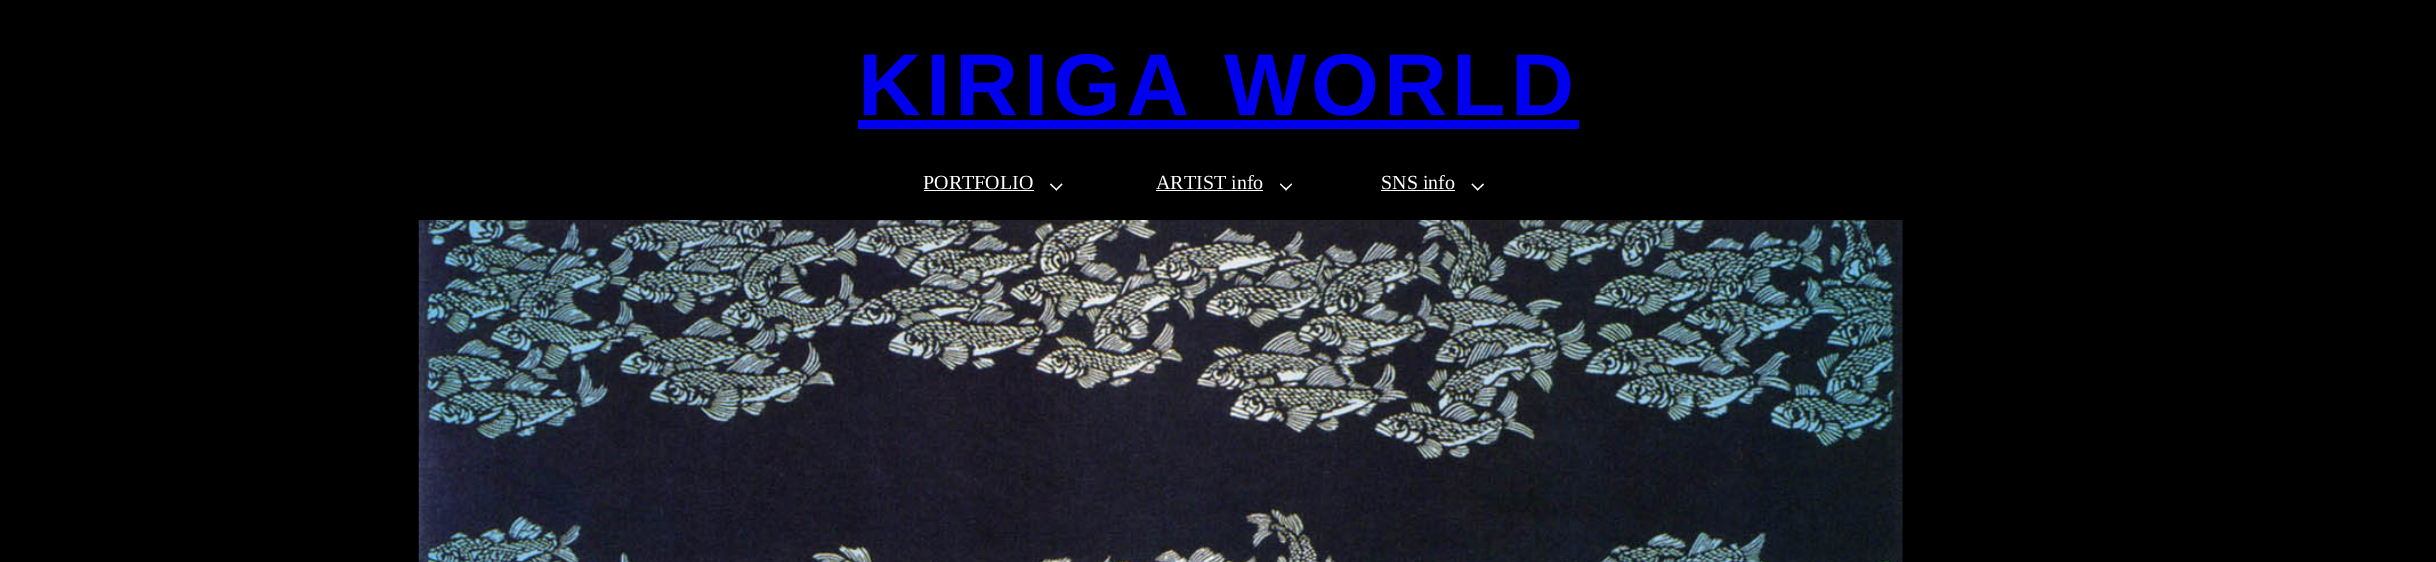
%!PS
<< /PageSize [2436 562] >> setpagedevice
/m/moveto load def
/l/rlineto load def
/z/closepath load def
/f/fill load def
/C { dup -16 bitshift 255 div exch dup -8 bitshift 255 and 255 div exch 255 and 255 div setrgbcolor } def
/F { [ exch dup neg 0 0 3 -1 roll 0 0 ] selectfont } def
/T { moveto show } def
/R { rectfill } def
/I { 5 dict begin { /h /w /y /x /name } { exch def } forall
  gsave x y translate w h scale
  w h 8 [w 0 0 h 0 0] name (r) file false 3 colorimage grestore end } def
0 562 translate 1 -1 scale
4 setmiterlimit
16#000000 C
0 0 2436 562 R
/LiberationSans-Bold 87.5 F
16#0000EE C
858 115 m 5 0 (KIRIGA WORLD) ashow
858 120 721 9 R
/LiberationSerif-Regular 20 F
16#FFFFFF C
(PORTFOLIO) 923 189 T
924 190 110 1 R
1061.5 183.5 m 1 1 l -6 6 l -1 -1 l z f
1051 183.5 m 6 6 l -.5 1 l -6.5 -6 l z f
(ARTIST info) 1156 189 T
1156 190 107 1 R
1291.5 183.5 m .5 1 l -6 6 l -1 -1 l z f
1280.5 183.5 m 6.5 6 l -1 1 l -6 -6 l z f
(SNS info) 1381 189 T
1381 190 74 1 R
1483 183.5 m 1 1 l -6.5 6 l -.5 -1 l z f
1472.5 183.5 m 6 6 l -1 1 l -6 -6 l z f
(1.rgb) 418 220 1485 342 I
showpage
